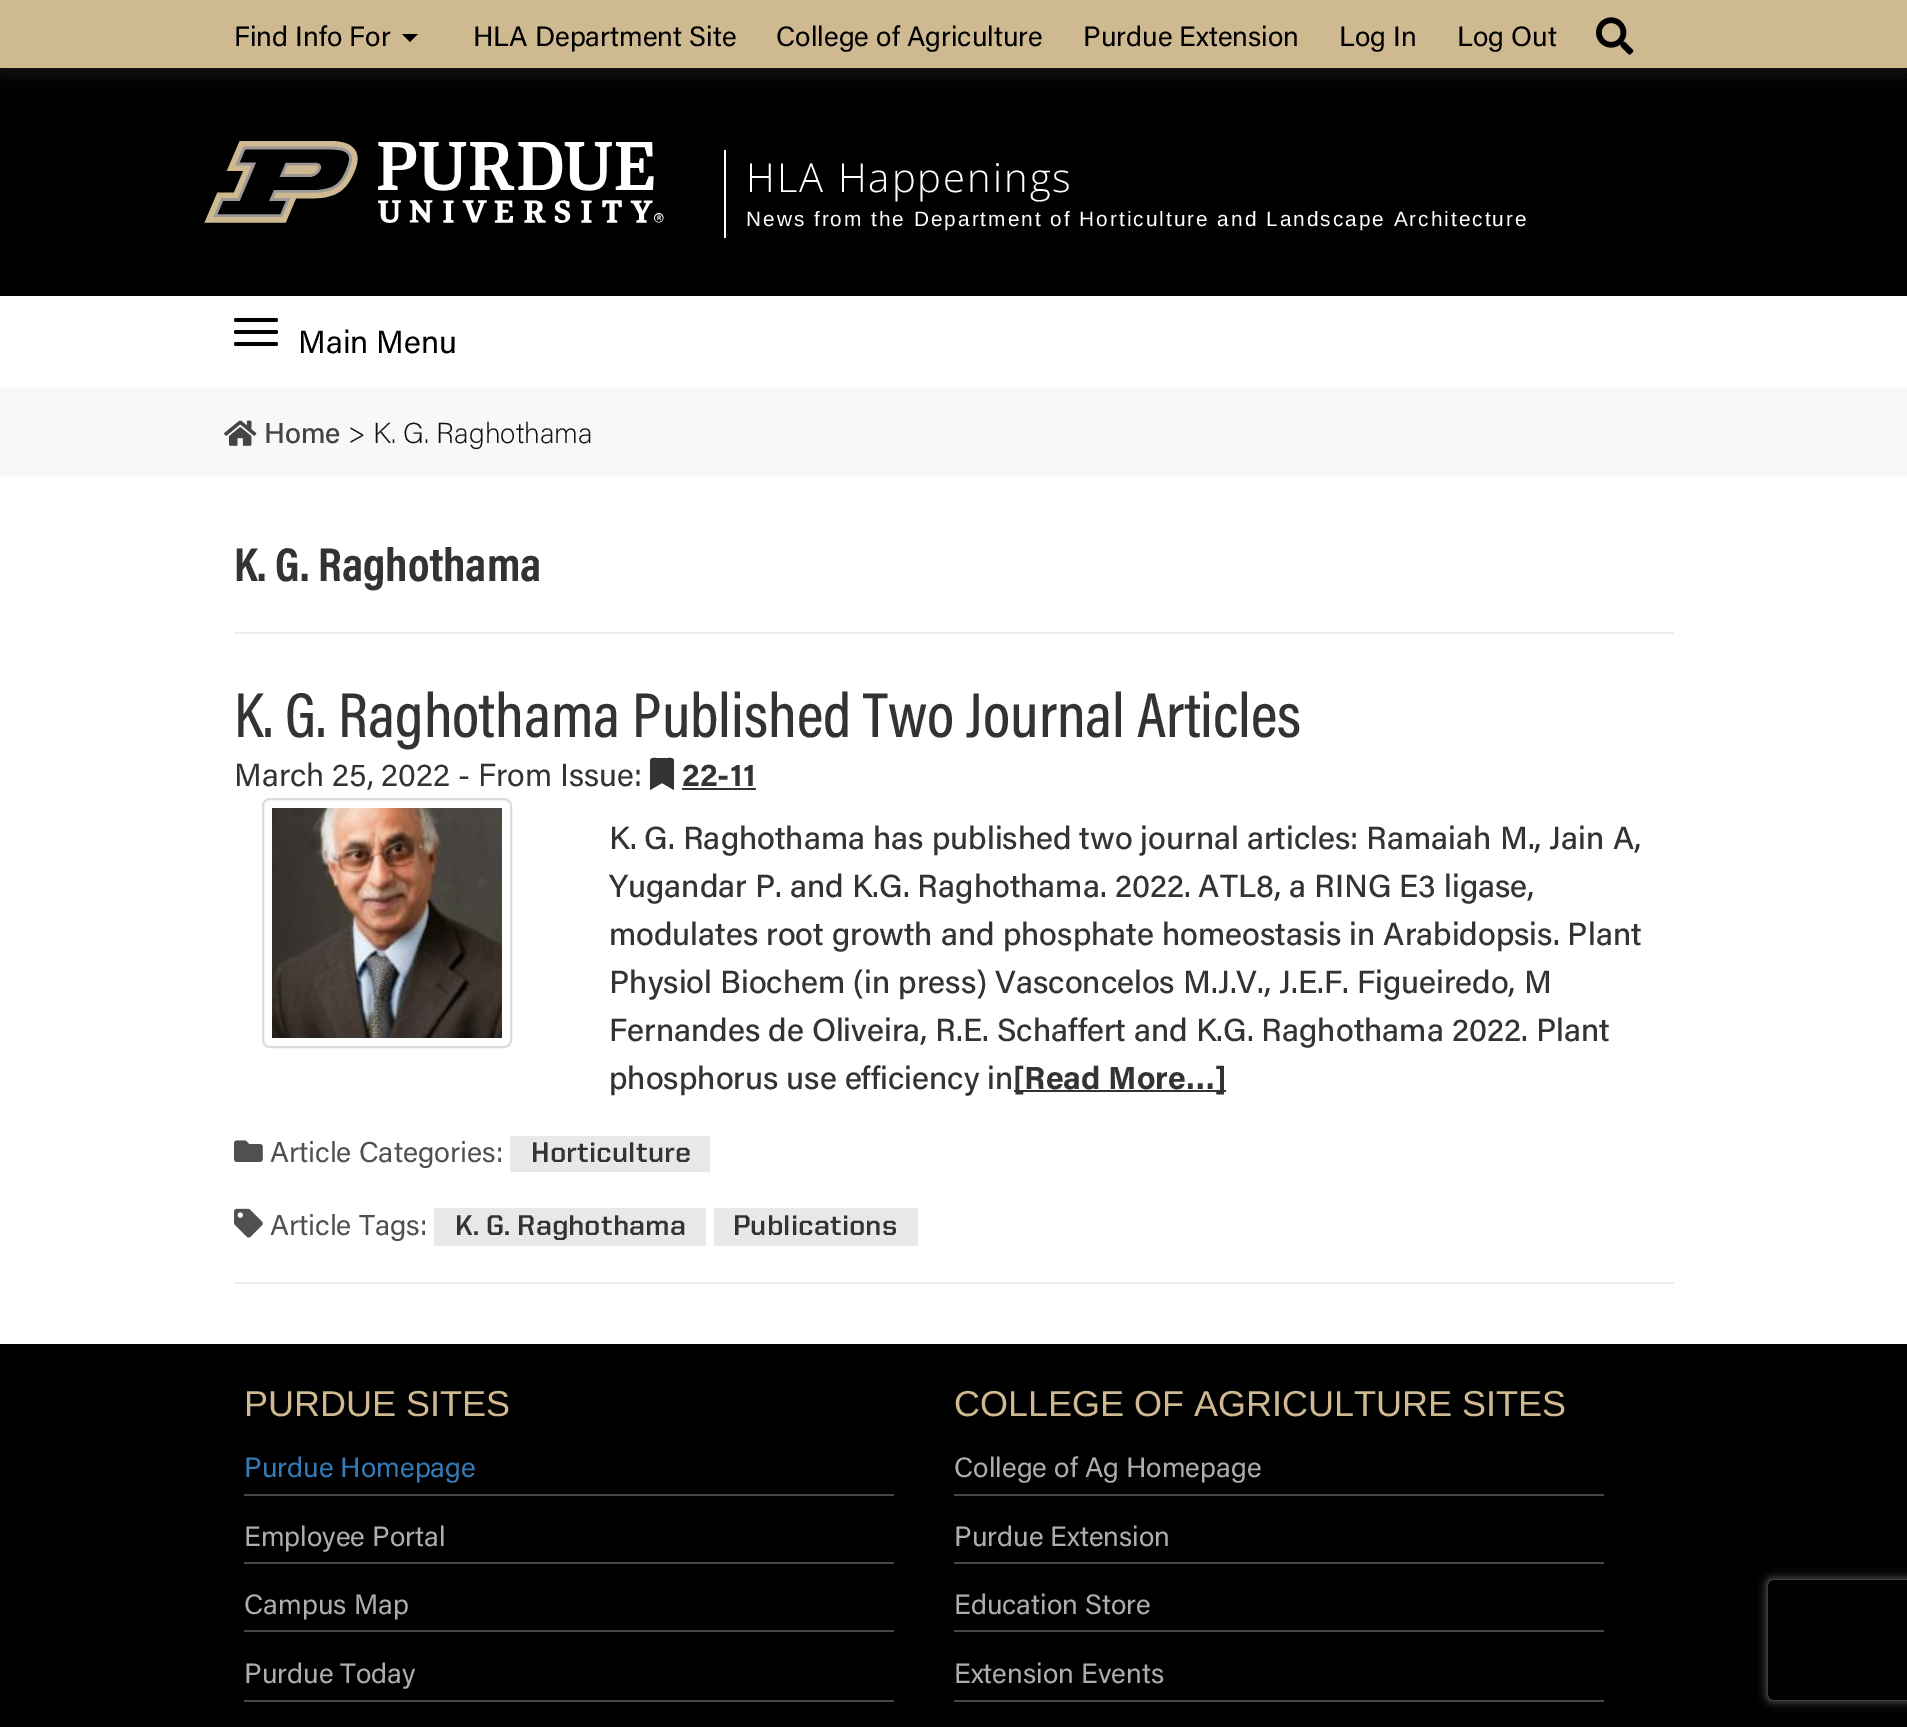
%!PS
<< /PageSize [1907 1727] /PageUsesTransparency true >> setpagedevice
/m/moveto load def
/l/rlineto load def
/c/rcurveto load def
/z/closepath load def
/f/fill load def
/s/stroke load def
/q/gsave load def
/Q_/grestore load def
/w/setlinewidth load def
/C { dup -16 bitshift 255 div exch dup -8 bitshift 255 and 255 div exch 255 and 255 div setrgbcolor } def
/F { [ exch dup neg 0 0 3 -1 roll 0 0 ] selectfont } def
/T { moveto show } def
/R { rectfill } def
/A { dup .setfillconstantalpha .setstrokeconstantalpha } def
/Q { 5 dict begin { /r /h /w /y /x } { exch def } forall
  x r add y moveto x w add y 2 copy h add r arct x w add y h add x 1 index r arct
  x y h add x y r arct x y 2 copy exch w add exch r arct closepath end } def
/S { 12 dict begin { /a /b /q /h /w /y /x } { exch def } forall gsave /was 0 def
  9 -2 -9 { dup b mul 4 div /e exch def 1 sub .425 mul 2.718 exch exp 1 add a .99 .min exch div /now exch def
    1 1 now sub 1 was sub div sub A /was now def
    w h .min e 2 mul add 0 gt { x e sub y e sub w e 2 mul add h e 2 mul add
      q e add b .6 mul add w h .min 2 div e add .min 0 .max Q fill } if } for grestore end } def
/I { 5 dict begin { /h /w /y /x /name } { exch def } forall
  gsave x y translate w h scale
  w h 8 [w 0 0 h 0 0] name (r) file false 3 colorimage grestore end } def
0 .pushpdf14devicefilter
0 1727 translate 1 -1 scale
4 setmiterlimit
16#FFFFFF C
0 0 1907 1727 R
16#000000 C
0 68 1907 228 R
16#1E1E1E C
0 4 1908 68 0 10 1 S
16#CFB991 C
0 0 1907 68 R
/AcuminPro-Regular 28 F
16#000000 C
(Find Info For) 234 46 T
402 34 m 16 0 l -8 8 l z f
(HLA Department Site) 473 46 T
(College of Agriculture) 776 46 T
(Purdue Extension) 1083 46 T
(Log In) 1339 46 T
(Log Out) 1457 46 T
(1.rgb) 1596 17 38 38 I
(2.rgb) 204 141 460 82 I
/OpenSans-Light 40 F
16#FFFFFF C
746 192 m 2 0 (HLA Happenings) ashow
724 150 2 88 R
/LiberationSans-Regular 20.8 F
746 226 m 2 0 (News from the Department of Horticulture and Landscape Architecture) ashow
16#000000 C
234 318 44 4 2 Q f
234 330 44 4 2 Q f
/AcuminPro-Regular 32 F
(Main Menu) 298 353 T
234 342 44 4 2 Q f
16#F8F8F8 C
0 388 1907 88 R
(3.rgb) 224 420 33 26 I
/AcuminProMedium-Medium 28.75 F
16#444444 C
(Home) 264 443 T
/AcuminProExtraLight-ExtraLight 28.75 F
16#131212 C
(> K. G. Raghothama) 348 443 T
/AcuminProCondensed-Bold 48 F
16#333333 C
(K. G. Raghothama) 234 581 T
16#EEEEEE C
234 632 1440 2 R
/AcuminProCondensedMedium-Medium 64 F
16#333333 C
(K. G. Raghothama Published Two Journal Articles) 234 737 T
/AcuminPro-Regular 32 F
(March 25, 2022 - From Issue:) 234 786 T
650 790 m 0 -29.5 l .5 -3 4 -2.5 6 -2.5 c 12 0 l 2 0 5.5 -.5 6 2.5 c 0 29.5 l -12 -7 l z f
/AcuminPro-Bold 32 F
(22-11) 682 786 T
682 788 74 2 R
16#DDDDDD C
2 w
263 799 248 248 7 Q s
(4.rgb) 272 808 230 230 I
/AcuminProMedium-Medium 32 F
16#333333 C
(K. G. Raghothama has published two journal articles: Ramaiah M., Jain A,) 609 849 T
(Yugandar P. and K.G. Raghothama. 2022. ATL8, a RING E3 ligase,) 609 897 T
(modulates root growth and phosphate homeostasis in Arabidopsis. Plant) 609 945 T
(Physiol Biochem \(in press\) Vasconcelos M.J.V., J.E.F. Figueiredo, M) 609 993 T
(Fernandes de Oliveira, R.E. Schaffert and K.G. Raghothama 2022. Plant) 609 1041 T
(phosphorus use efficiency in) 609 1089 T
1014 1090 212 2 R
/AcuminPro-Bold 32 F
([Read More…]) 1013 1089 T
(5.rgb) 234 1140 29 22 I
/AcuminPro-Regular 28.75 F
16#505050 C
(Article Categories:) 270 1162 T
16#E8E8E8 C
510 1136 200 36 R
/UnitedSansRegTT-Bold 28.75 F
16#333333 C
(Horticulture) 531 1162 T
(6.rgb) 234 1208 29 30 I
/AcuminPro-Regular 28.75 F
16#505050 C
(Article Tags:) 270 1235 T
16#E8E8E8 C
434 1208 272 38 R
/UnitedSansRegTT-Bold 28.75 F
16#333333 C
(K. G. Raghothama) 455 1235 T
16#E8E8E8 C
714 1208 204 38 R
16#333333 C
(Publications) 733 1235 T
16#EEEEEE C
234 1282 1440 2 R
16#000000 C
0 1344 1907 383 R
/LiberationSans-Regular 36 F
16#CFB991 C
(PURDUE SITES) 244 1416 T
16#474747 C
244 1494 650 2 R
/AcuminPro-Regular 28 F
16#337AB7 C
(Purdue Homepage) 244 1477 T
16#474747 C
244 1562 650 2 R
16#ADADAD C
(Employee Portal) 244 1546 T
16#474747 C
244 1630 650 2 R
16#ADADAD C
(Campus Map) 244 1614 T
16#474747 C
244 1700 650 2 R
16#ADADAD C
(Purdue Today) 244 1683 T
/LiberationSans-Regular 36 F
16#CFB991 C
(COLLEGE OF AGRICULTURE SITES) 954 1416 T
16#474747 C
954 1494 650 2 R
/AcuminPro-Regular 28 F
16#ADADAD C
(College of Ag Homepage) 954 1477 T
16#474747 C
954 1562 650 2 R
16#ADADAD C
(Purdue Extension) 954 1546 T
16#474747 C
954 1630 650 2 R
16#ADADAD C
(Education Store) 954 1614 T
16#474747 C
954 1700 650 2 R
16#ADADAD C
(Extension Events) 954 1683 T
q
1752 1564 m 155 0 l 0 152 l -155 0 l z 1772 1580 m 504 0 l 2 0 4 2 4 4 c 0 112 l 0 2 -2 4 -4 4 c -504 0 l -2 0 -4 -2 -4 -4 c 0 -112 l 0 -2 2 -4 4 -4 c z eoclip newpath
16#808080 C
1768 1580 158 120 4 5 1 S
Q_
.poppdf14devicefilter showpage
